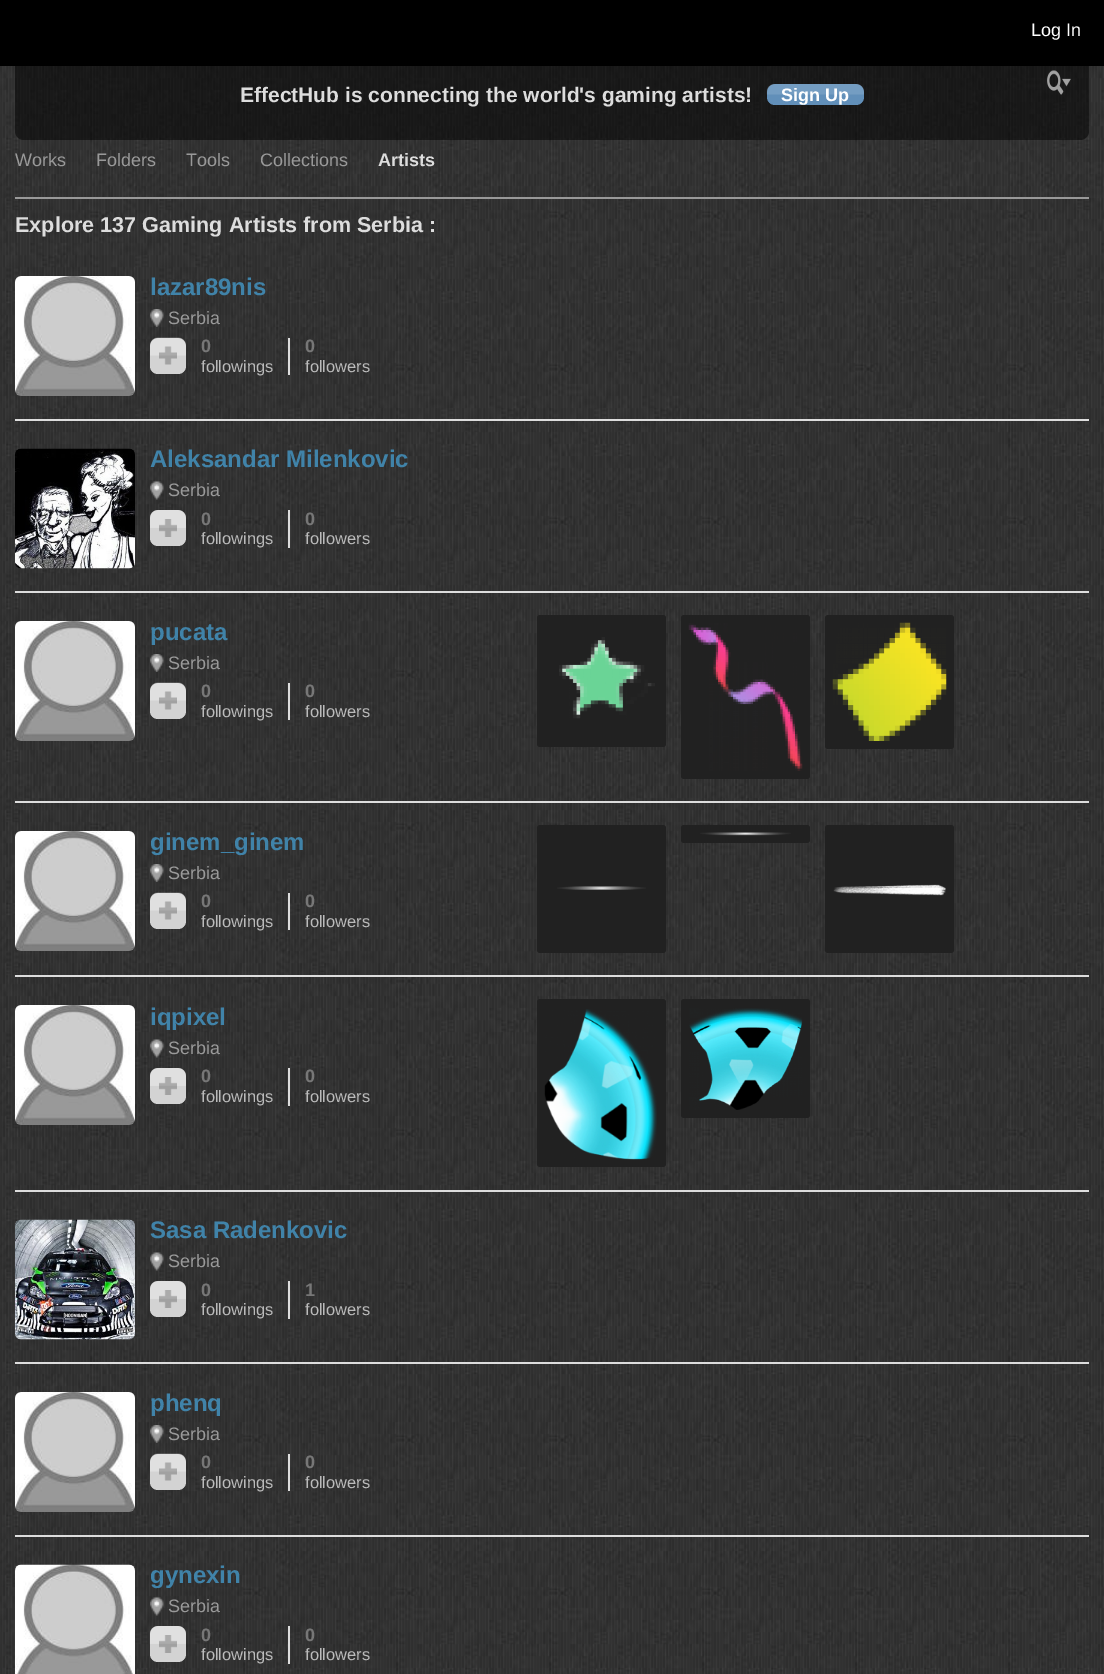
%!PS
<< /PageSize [1104 1674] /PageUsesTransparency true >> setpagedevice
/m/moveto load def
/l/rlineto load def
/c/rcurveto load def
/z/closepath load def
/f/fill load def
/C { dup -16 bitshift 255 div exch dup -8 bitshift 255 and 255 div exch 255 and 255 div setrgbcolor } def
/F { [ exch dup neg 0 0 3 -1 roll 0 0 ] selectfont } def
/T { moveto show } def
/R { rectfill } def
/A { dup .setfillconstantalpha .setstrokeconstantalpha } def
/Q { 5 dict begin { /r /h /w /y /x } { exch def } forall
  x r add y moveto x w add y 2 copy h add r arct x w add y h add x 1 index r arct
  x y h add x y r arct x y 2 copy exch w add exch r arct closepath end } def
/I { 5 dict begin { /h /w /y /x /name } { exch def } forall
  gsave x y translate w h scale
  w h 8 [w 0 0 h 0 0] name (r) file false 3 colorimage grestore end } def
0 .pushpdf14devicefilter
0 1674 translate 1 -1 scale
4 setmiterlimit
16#000000 C
0 0 1104 1674 R
/LiberationSans-Regular 18 F
16#FFFFFF C
(Log In) 1031 36 T
(1.rgb) 0 66 1104 1608 I
0.5 A
16#000000 C
15 51 m 1074 0 l 0 80 l 0 5 -4 9 -9 9 c -1056 0 l -5 0 -9 -4 -9 -9 c z f
/LiberationSans-Bold 21 F
1 A
16#DDDDDD C
(EffectHub is connecting the world's gaming artists!) 240 102 T
16#618FB9 C
767 84 97 21 8 Q f
(2.rgb) 766 84 98 11 I
/LiberationSans-Bold 18 F
16#FFFFFF C
(Sign Up) 781 101 T
(3.rgb) 1047 70 24 25 I
16#999999 C
15 197 1074 2 R
/LiberationSans-Regular 18 F
(Works) 15 166 T
(Folders) 96 166 T
(Tools) 186 166 T
(Collections) 260 166 T
/LiberationSans-Bold 18 F
16#DDDDDD C
(Artists) 378 166 T
/LiberationSans-Bold 21.6 F
(Explore 137 Gaming Artists from Serbia :) 15 232 T
15 419 1074 2 R
(4.rgb) 15 276 120 120 I
/LiberationSans-Bold 24 F
16#4083A9 C
(lazar89nis) 150 295 T
(5.rgb) 150 309 14 18 I
/LiberationSans-Regular 18 F
16#999999 C
(Serbia) 168 324 T
16#D3D3D3 C
150 338 36 36 8 Q f
(6.rgb) 150 337 36 19 I
(7.rgb) 159 346 18 19 I
16#DDDDDD C
288 338 2 37 R
/LiberationSans-Bold 18 F
16#777777 C
(0) 201 352 T
/LiberationSans-Regular 16.5 F
16#BBBBBB C
(followings) 201 372 T
/LiberationSans-Bold 18 F
16#777777 C
(0) 305 352 T
/LiberationSans-Regular 16.5 F
16#BBBBBB C
(followers) 305 372 T
16#DDDDDD C
15 591 1074 2 R
(8.rgb) 15 448 120 121 I
/LiberationSans-Bold 24 F
16#4083A9 C
(Aleksandar Milenkovic) 150 467 T
(9.rgb) 150 481 14 19 I
/LiberationSans-Regular 18 F
16#999999 C
(Serbia) 168 496 T
16#D3D3D3 C
150 510 36 36 8 Q f
(10.rgb) 150 510 36 18 I
(11.rgb) 159 519 18 18 I
16#DDDDDD C
288 510 2 38 R
/LiberationSans-Bold 18 F
16#777777 C
(0) 201 525 T
/LiberationSans-Regular 16.5 F
16#BBBBBB C
(followings) 201 544 T
/LiberationSans-Bold 18 F
16#777777 C
(0) 305 525 T
/LiberationSans-Regular 16.5 F
16#BBBBBB C
(followers) 305 544 T
16#DDDDDD C
15 801 1074 2 R
(12.rgb) 15 621 120 120 I
/LiberationSans-Bold 24 F
16#4083A9 C
(pucata) 150 640 T
(13.rgb) 150 654 14 18 I
/LiberationSans-Regular 18 F
16#999999 C
(Serbia) 168 669 T
16#D3D3D3 C
150 683 36 36 8 Q f
(14.rgb) 150 682 36 19 I
(7.rgb) 159 691 18 19 I
16#DDDDDD C
288 683 2 37 R
/LiberationSans-Bold 18 F
16#777777 C
(0) 201 697 T
/LiberationSans-Regular 16.5 F
16#BBBBBB C
(followings) 201 717 T
/LiberationSans-Bold 18 F
16#777777 C
(0) 305 697 T
/LiberationSans-Regular 16.5 F
16#BBBBBB C
(followers) 305 717 T
16#212121 C
537 615 129 132 3 Q f
(15.rgb) 559 637 96 82 I
681 615 129 164 3 Q f
(16.rgb) 688 623 115 148 I
825 615 129 134 3 Q f
(17.rgb) 832 622 115 119 I
16#DDDDDD C
15 975 1074 2 R
(18.rgb) 15 831 120 120 I
/LiberationSans-Bold 24 F
16#4083A9 C
(ginem_ginem) 150 850 T
(19.rgb) 150 864 14 18 I
/LiberationSans-Regular 18 F
16#999999 C
(Serbia) 168 879 T
16#D3D3D3 C
150 893 36 36 8 Q f
(20.rgb) 150 892 36 19 I
(7.rgb) 159 901 18 19 I
16#DDDDDD C
288 893 2 37 R
/LiberationSans-Bold 18 F
16#777777 C
(0) 201 907 T
/LiberationSans-Regular 16.5 F
16#BBBBBB C
(followings) 201 927 T
/LiberationSans-Bold 18 F
16#777777 C
(0) 305 907 T
/LiberationSans-Regular 16.5 F
16#BBBBBB C
(followers) 305 927 T
16#212121 C
537 825 129 128 3 Q f
(21.rgb) 557 886 89 4 I
681 825 129 18 3 Q f
(22.rgb) 700 832 91 4 I
825 825 129 128 3 Q f
(23.rgb) 833 884 113 12 I
16#DDDDDD C
15 1190 1074 2 R
(24.rgb) 15 1005 120 120 I
/LiberationSans-Bold 24 F
16#4083A9 C
(iqpixel) 150 1025 T
(25.rgb) 150 1039 14 19 I
/LiberationSans-Regular 18 F
16#999999 C
(Serbia) 168 1054 T
16#D3D3D3 C
150 1068 36 36 8 Q f
(26.rgb) 150 1068 36 18 I
(11.rgb) 159 1077 18 18 I
16#DDDDDD C
288 1068 2 38 R
/LiberationSans-Bold 18 F
16#777777 C
(0) 201 1082 T
/LiberationSans-Regular 16.5 F
16#BBBBBB C
(followings) 201 1102 T
/LiberationSans-Bold 18 F
16#777777 C
(0) 305 1082 T
/LiberationSans-Regular 16.5 F
16#BBBBBB C
(followers) 305 1102 T
16#212121 C
537 999 129 168 3 Q f
(27.rgb) 544 1009 113 151 I
681 999 129 119 3 Q f
(28.rgb) 689 1008 114 102 I
16#DDDDDD C
15 1362 1074 2 R
(29.rgb) 15 1219 120 121 I
/LiberationSans-Bold 24 F
16#4083A9 C
(Sasa Radenkovic) 150 1238 T
(30.rgb) 150 1252 14 19 I
/LiberationSans-Regular 18 F
16#999999 C
(Serbia) 168 1267 T
16#D3D3D3 C
150 1281 36 36 8 Q f
(31.rgb) 150 1281 36 18 I
(11.rgb) 159 1290 18 18 I
16#DDDDDD C
288 1281 2 38 R
/LiberationSans-Bold 18 F
16#777777 C
(0) 201 1296 T
/LiberationSans-Regular 16.5 F
16#BBBBBB C
(followings) 201 1315 T
/LiberationSans-Bold 18 F
16#777777 C
(1) 305 1296 T
/LiberationSans-Regular 16.5 F
16#BBBBBB C
(followers) 305 1315 T
16#DDDDDD C
15 1535 1074 2 R
(32.rgb) 15 1392 120 120 I
/LiberationSans-Bold 24 F
16#4083A9 C
(phenq) 150 1411 T
(33.rgb) 150 1425 14 18 I
/LiberationSans-Regular 18 F
16#999999 C
(Serbia) 168 1440 T
16#D3D3D3 C
150 1454 36 36 8 Q f
(34.rgb) 150 1453 36 19 I
(7.rgb) 159 1462 18 19 I
16#DDDDDD C
288 1454 2 37 R
/LiberationSans-Bold 18 F
16#777777 C
(0) 201 1468 T
/LiberationSans-Regular 16.5 F
16#BBBBBB C
(followings) 201 1488 T
/LiberationSans-Bold 18 F
16#777777 C
(0) 305 1468 T
/LiberationSans-Regular 16.5 F
16#BBBBBB C
(followers) 305 1488 T
(35.rgb) 15 1564 120 110 I
/LiberationSans-Bold 24 F
16#4083A9 C
(gynexin) 150 1583 T
(36.rgb) 150 1597 14 19 I
/LiberationSans-Regular 18 F
16#999999 C
(Serbia) 168 1612 T
16#D3D3D3 C
150 1626 36 36 8 Q f
(37.rgb) 150 1626 36 18 I
(11.rgb) 159 1635 18 18 I
16#DDDDDD C
288 1626 2 38 R
/LiberationSans-Bold 18 F
16#777777 C
(0) 201 1641 T
/LiberationSans-Regular 16.5 F
16#BBBBBB C
(followings) 201 1660 T
/LiberationSans-Bold 18 F
16#777777 C
(0) 305 1641 T
/LiberationSans-Regular 16.5 F
16#BBBBBB C
(followers) 305 1660 T
.poppdf14devicefilter showpage
